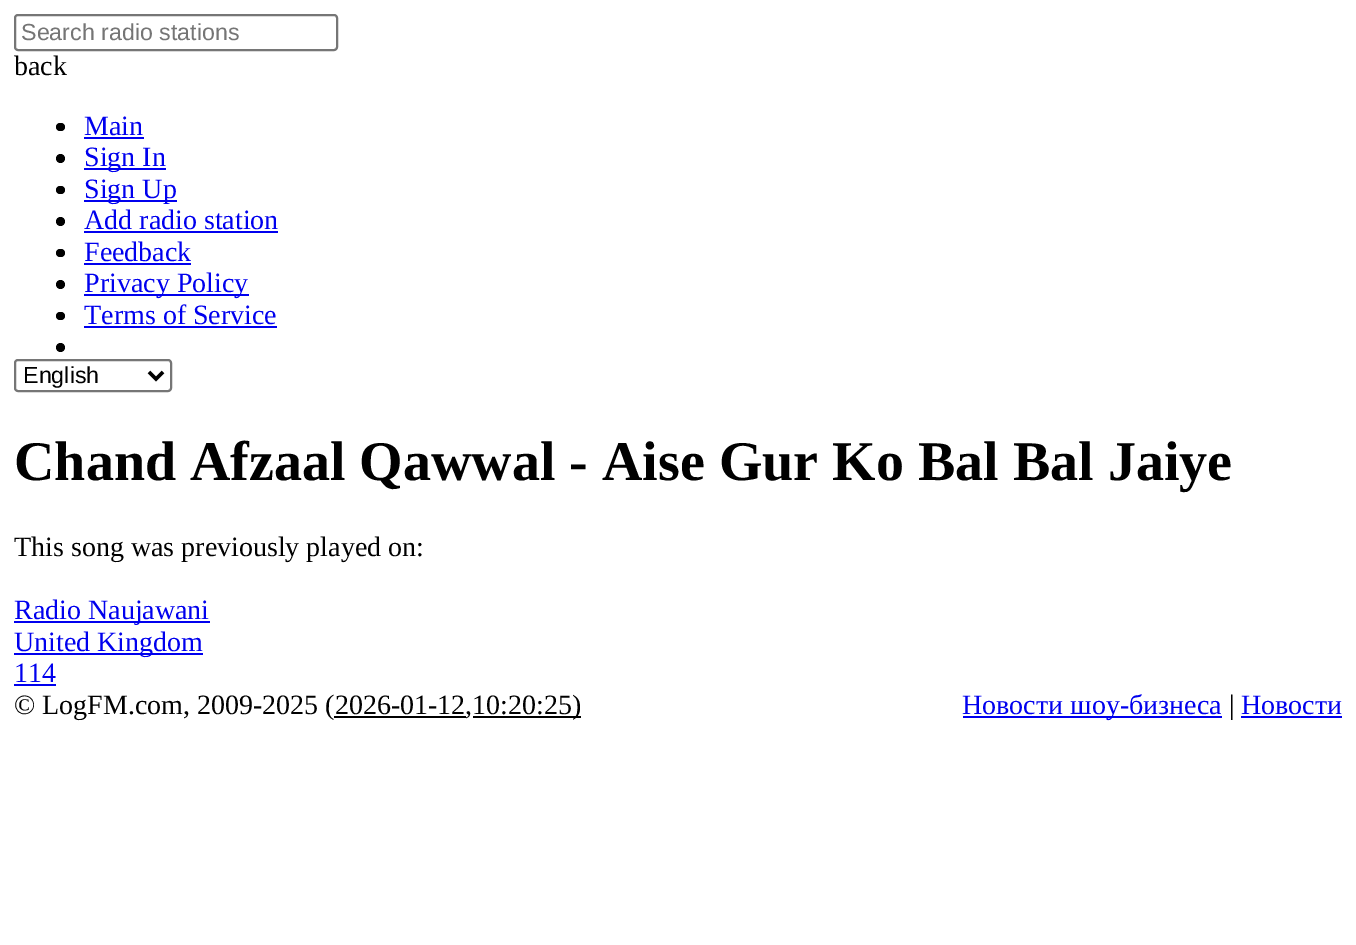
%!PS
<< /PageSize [1356 945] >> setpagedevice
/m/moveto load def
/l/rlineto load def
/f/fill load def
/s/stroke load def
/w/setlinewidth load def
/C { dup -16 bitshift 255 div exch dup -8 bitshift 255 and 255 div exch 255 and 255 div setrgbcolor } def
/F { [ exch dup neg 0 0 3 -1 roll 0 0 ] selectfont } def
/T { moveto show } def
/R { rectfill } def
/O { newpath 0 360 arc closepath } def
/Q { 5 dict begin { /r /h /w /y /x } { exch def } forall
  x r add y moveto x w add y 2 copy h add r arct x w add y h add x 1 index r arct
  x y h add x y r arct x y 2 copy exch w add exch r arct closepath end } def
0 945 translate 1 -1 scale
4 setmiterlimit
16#FFFFFF C
0 0 1356 945 R
16#767676 C
2 w
15 15 322 35 3 Q s
/LiberationSans-Regular 23.25 F
16#757575 C
(Search radio stations) 21 40 T
/LiberationSerif-Regular 28 F
16#000000 C
(back) 14 75 T
56 123 9 8 4 Q f
16#0000EE C
(Main) 84 135 T
84 137 60 2 R
16#000000 C
60.5 158.5 4.5 O f
16#0000EE C
84 168 82 2 R
(Sign In) 84 166 T
16#000000 C
56 186 9 8 4 Q f
16#0000EE C
84 200 93 2 R
(Sign Up) 84 198 T
16#000000 C
60.5 221.5 4.5 O f
16#0000EE C
(Add radio station) 84 229 T
84 231 194 2 R
16#000000 C
56 249 9 8 4 Q f
16#0000EE C
(Feedback) 84 261 T
84 263 107 2 R
16#000000 C
60.5 284.5 4.5 O f
16#0000EE C
84 294 165 2 R
(Privacy Policy) 84 292 T
16#000000 C
56 312 9 8 4 Q f
16#0000EE C
(Terms of Service) 84 324 T
84 326 193 2 R
16#000000 C
60.5 347.5 4.5 O f
16#767676 C
15 360 156 31 3 Q s
16#000000 C
3.5 w
149 372 m 7 7 l 7 -7 l s
/LiberationSans-Regular 23.25 F
(English) 23 383 T
/LiberationSerif-Bold 56 F
(Chand Afzaal Qawwal - Aise Gur Ko Bal Bal Jaiye) 14 480 T
/LiberationSerif-Regular 28 F
(This song was previously played on:) 14 556 T
16#0000EE C
14 621 196 2 R
(Radio Naujawani) 14 619 T
14 653 189 2 R
(United Kingdom) 14 651 T
(114) 14 682 T
14 684 42 2 R
16#000000 C
(© LogFM.com, 2009-2025 \(2026-01-12,) 14 714 T
473 716 108 2 R
(10:20:25\)) 472 714 T
16#0000EE C
963 716 259 2 R
(Новости шоу-бизнеса) 962 714 T
16#000000 C
(|) 1229 714 T
16#0000EE C
(Новости) 1241 714 T
1241 716 101 2 R
16#000000 C
334 716 132 2 R
showpage
